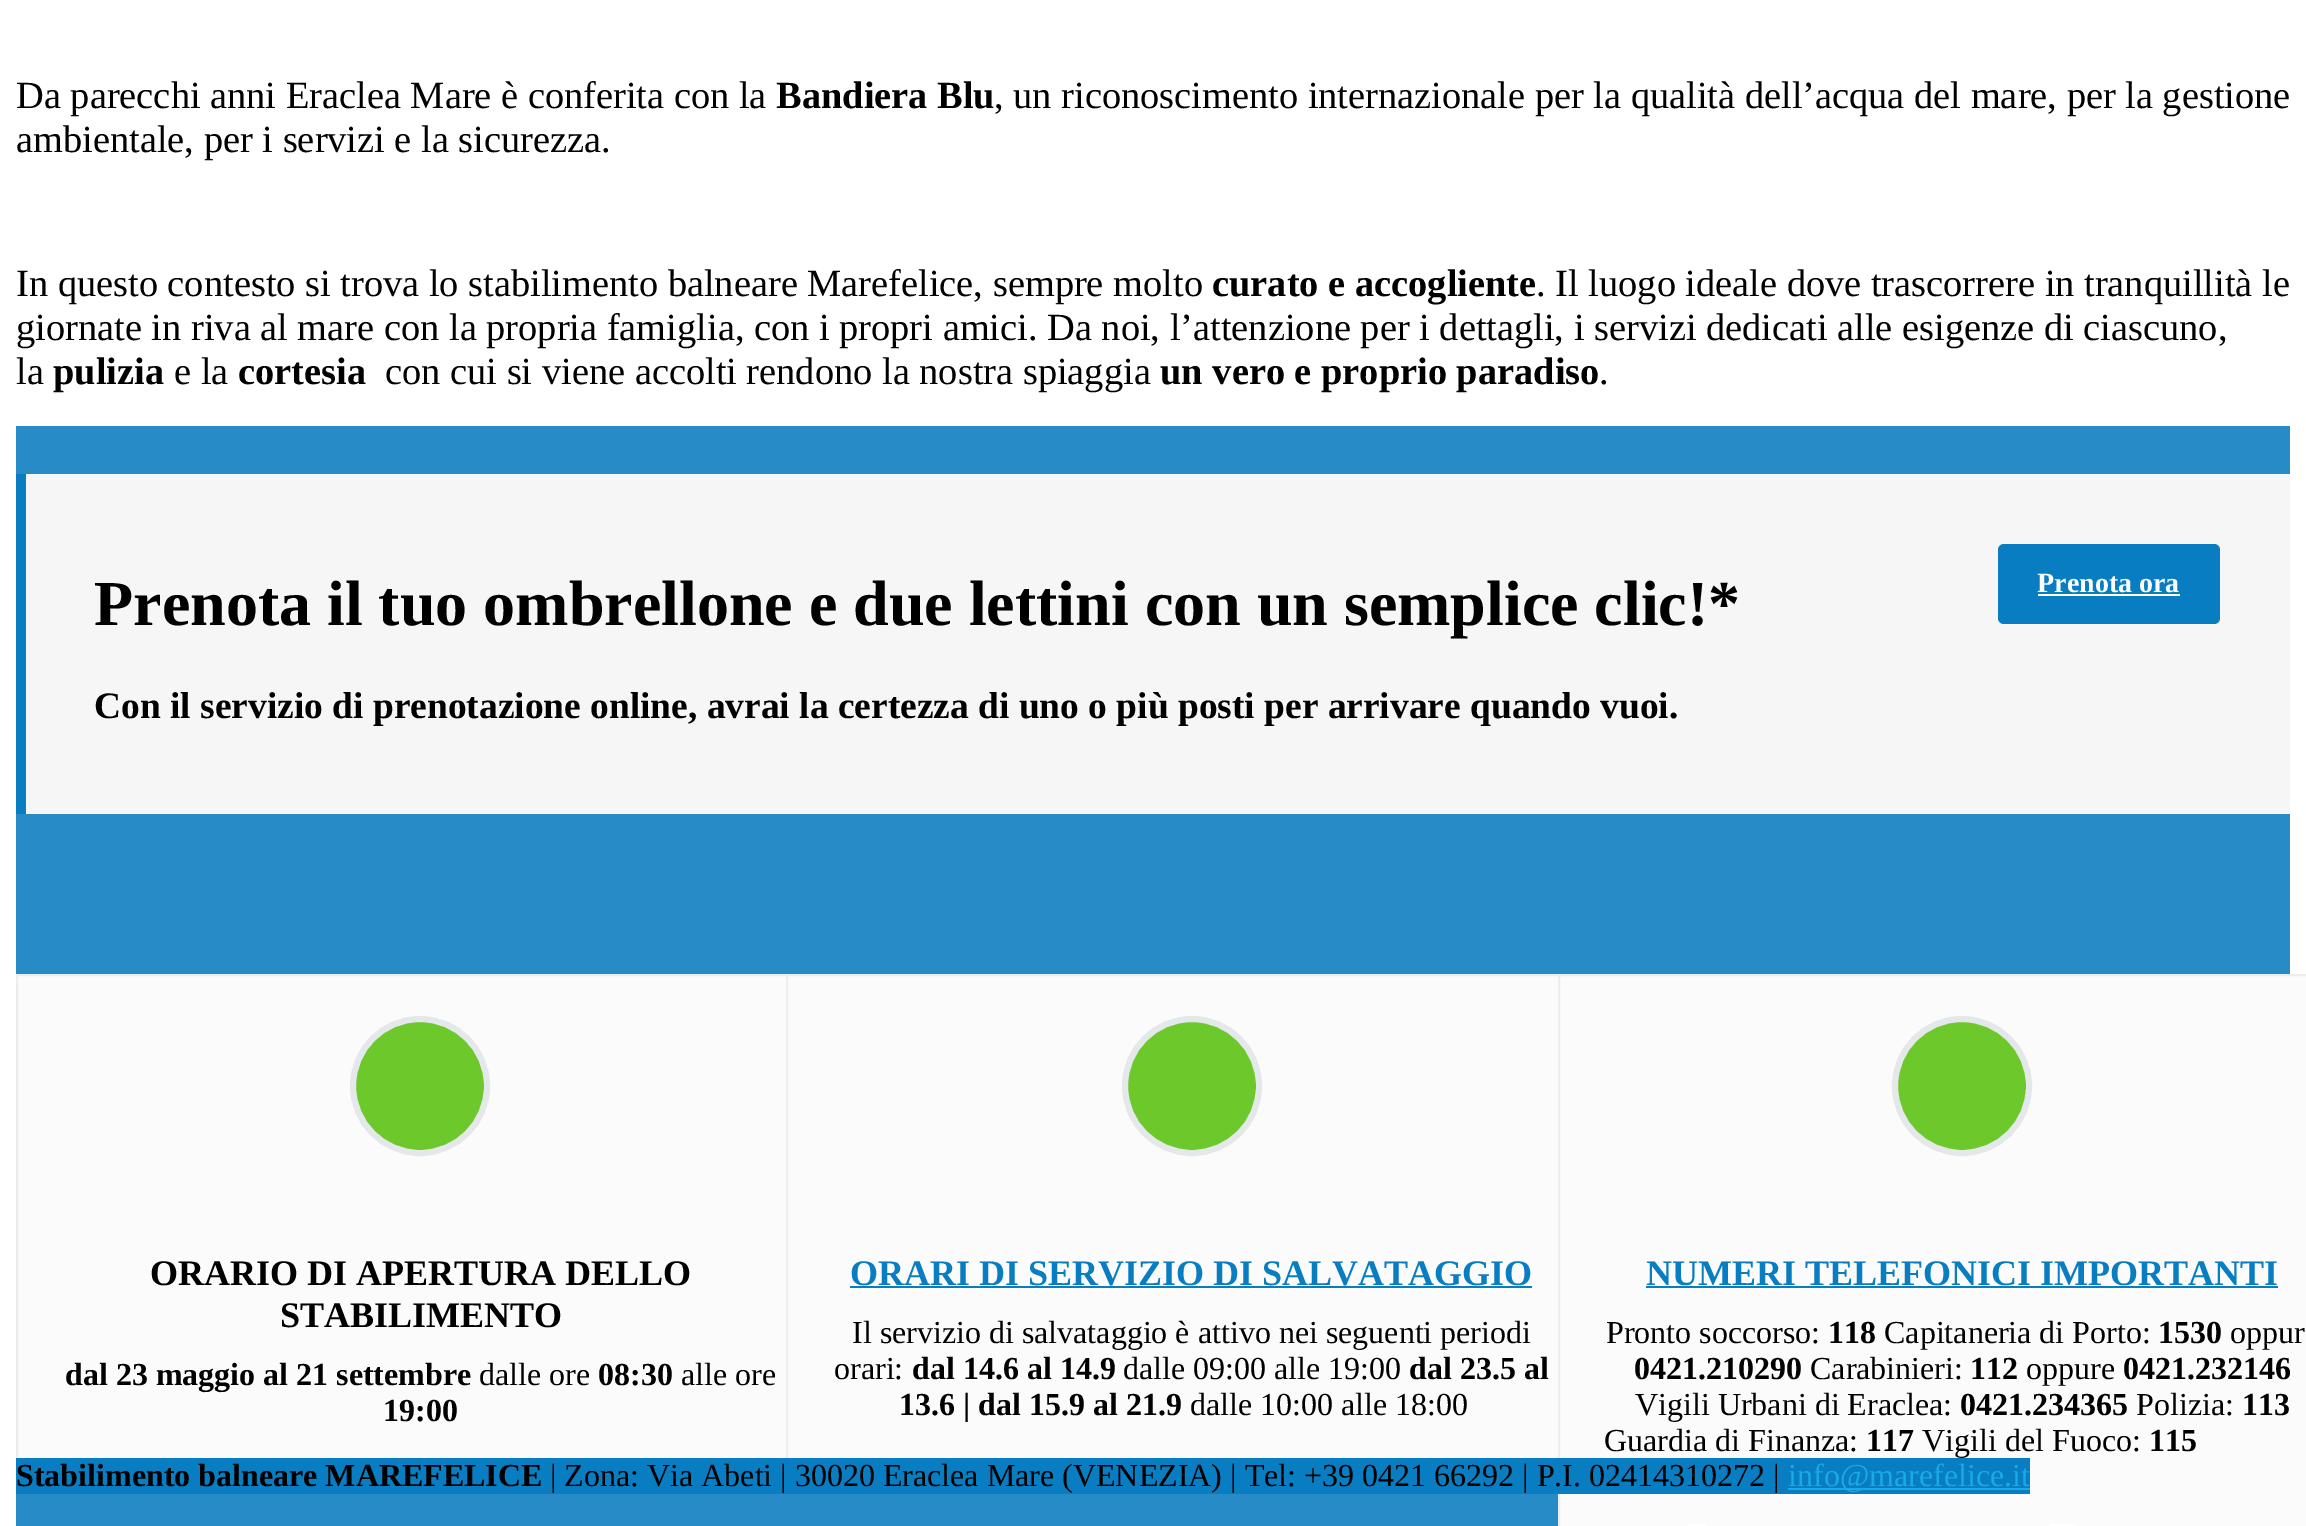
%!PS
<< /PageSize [2306 1526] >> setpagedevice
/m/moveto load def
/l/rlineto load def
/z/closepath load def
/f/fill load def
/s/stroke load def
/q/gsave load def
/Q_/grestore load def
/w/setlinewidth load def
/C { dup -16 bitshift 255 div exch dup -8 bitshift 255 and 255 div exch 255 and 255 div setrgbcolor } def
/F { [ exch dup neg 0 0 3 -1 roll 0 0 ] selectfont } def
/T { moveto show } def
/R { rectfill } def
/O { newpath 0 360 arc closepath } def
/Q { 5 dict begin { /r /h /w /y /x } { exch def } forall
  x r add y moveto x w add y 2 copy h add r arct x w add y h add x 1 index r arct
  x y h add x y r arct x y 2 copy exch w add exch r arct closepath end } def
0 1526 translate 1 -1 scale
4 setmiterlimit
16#FFFFFF C
0 0 2306 1526 R
/LiberationSerif-Regular 38.4 F
16#000000 C
(Da parecchi anni Eraclea Mare è conferita con la) 16 108 T
/LiberationSerif-Bold 38.4 F
(Bandiera Blu) 776 108 T
/LiberationSerif-Regular 38.4 F
(, un riconoscimento internazionale per la qualità dell’acqua del mare, per la gestione) 994 108 T
(ambientale, per i servizi e la sicurezza.) 16 152 T
(In questo contesto si trova lo stabilimento balneare Marefelice, sempre molto) 16 296 T
/LiberationSerif-Bold 38.4 F
(curato e accogliente) 1212 296 T
/LiberationSerif-Regular 38.4 F
(. Il luogo ideale dove trascorrere in tranquillità le) 1536 296 T
(giornate in riva al mare con la propria famiglia, con i propri amici. Da noi, l’attenzione per i dettagli, i servizi dedicati alle esigenze di ciascuno,) 16 340 T
(la) 16 384 T
/LiberationSerif-Bold 38.4 F
(pulizia) 53 384 T
/LiberationSerif-Regular 38.4 F
(e la) 174 384 T
/LiberationSerif-Bold 38.4 F
(cortesia) 238 384 T
/LiberationSerif-Regular 38.4 F
(con cui si viene accolti rendono la nostra spiaggia) 385 384 T
/LiberationSerif-Bold 38.4 F
(un vero e proprio paradiso) 1160 384 T
/LiberationSerif-Regular 38.4 F
(.) 1599 384 T
16#268BC7 C
16 426 2274 1100 R
16#F6F6F6 C
26 474 2264 340 R
16#087DC2 C
16 474 10 340 R
/LiberationSerif-Bold 64 F
16#000000 C
(Prenota il tuo ombrellone e due lettini con un semplice clic!*) 94 625 T
/LiberationSerif-Bold 37.45 F
(Con il servizio di prenotazione online, avrai la certezza di uno o più posti per arrivare quando vuoi.) 94 718 T
16#087DC2 C
1998 544 222 80 6 Q f
/LiberationSerif-Bold 28 F
16#FFFFFF C
(Prenota ora) 2037 592 T
2038 594 142 2 R
16#FBFBFB C
18 976 768 482 R
16#ECEEEB C
2 w
17 975 808 494 rectstroke
16#6DC82B C
420 1086 67 O q f Q_
16#E4E8EA C
6 w
s
/LiberationSerif-Bold 36 F
16#000000 C
(ORARIO DI APERTURA DELLO) 150 1285 T
(STABILIMENTO) 280 1327 T
/LiberationSerif-Bold 32 F
(dal 23 maggio al 21 settembre) 65 1385 T
/LiberationSerif-Regular 32 F
(dalle ore) 479 1385 T
/LiberationSerif-Bold 32 F
(08:30) 598 1385 T
/LiberationSerif-Regular 32 F
(alle ore) 681 1385 T
/LiberationSerif-Bold 32 F
(19:00) 383 1421 T
16#FBFBFB C
788 976 770 482 R
16#ECEEEB C
2 w
787 975 808 488 rectstroke
16#6DC82B C
1192 1086 67 O q f Q_
16#E4E8EA C
6 w
s
/LiberationSerif-Bold 36 F
16#087DC2 C
(ORARI DI SERVIZIO DI SALVATAGGIO) 850 1285 T
850 1286 682 2 R
/LiberationSerif-Regular 32 F
16#000000 C
(Il servizio di salvataggio è attivo nei seguenti periodi) 852 1343 T
(orari:) 834 1379 T
/LiberationSerif-Bold 32 F
(dal 14.6 al 14.9) 912 1379 T
/LiberationSerif-Regular 32 F
(dalle 09:00 alle 19:00) 1123 1379 T
/LiberationSerif-Bold 32 F
(dal 23.5 al) 1409 1379 T
(13.6 | dal 15.9 al 21.9) 899 1415 T
/LiberationSerif-Regular 32 F
(dalle 10:00 alle 18:00) 1190 1415 T
16#FBFBFB C
1559 975 m 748 0 l 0 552 l -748 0 l z q f Q_
16#ECEEEB C
2 w
s
16#6DC82B C
1962 1086 67 O q f Q_
16#E4E8EA C
6 w
s
/LiberationSerif-Bold 36 F
16#087DC2 C
(NUMERI TELEFONICI IMPORTANTI) 1646 1285 T
1646 1286 632 2 R
/LiberationSerif-Regular 32 F
16#000000 C
(Pronto soccorso:) 1606 1343 T
/LiberationSerif-Bold 32 F
(118) 1828 1343 T
/LiberationSerif-Regular 32 F
(Capitaneria di Porto:) 1884 1343 T
/LiberationSerif-Bold 32 F
(1530) 2158 1343 T
/LiberationSerif-Regular 32 F
(oppur) 2230 1343 T
/LiberationSerif-Bold 32 F
(0421.210290) 1634 1379 T
/LiberationSerif-Regular 32 F
(Carabinieri:) 1810 1379 T
/LiberationSerif-Bold 32 F
(112) 1970 1379 T
/LiberationSerif-Regular 32 F
(oppure) 2026 1379 T
/LiberationSerif-Bold 32 F
(0421.232146) 2123 1379 T
/LiberationSerif-Regular 32 F
(Vigili Urbani di Eraclea:) 1635 1415 T
/LiberationSerif-Bold 32 F
(0421.234365) 1960 1415 T
/LiberationSerif-Regular 32 F
(Polizia:) 2136 1415 T
/LiberationSerif-Bold 32 F
(113) 2242 1415 T
/LiberationSerif-Regular 32 F
(Guardia di Finanza:) 1604 1451 T
/LiberationSerif-Bold 32 F
(117) 1866 1451 T
/LiberationSerif-Regular 32 F
(Vigili del Fuoco:) 1922 1451 T
/LiberationSerif-Bold 32 F
(115) 2149 1451 T
16#FFFFFF C
1688 1524 18 2 R
2050 1524 26 2 R
16#087DC2 C
16 1458 2014 36 R
16#000000 C
(Stabilimento balneare MAREFELICE) 16 1486 T
/LiberationSerif-Regular 32 F
(| Zona: Via Abeti | 30020 Eraclea Mare \(VENEZIA\) | Tel: +39 0421 66292 | P.I. 02414310272 |) 550 1486 T
16#19A9E5 C
1788 1488 242 2 R
(info@marefelice.it) 1788 1486 T
showpage
